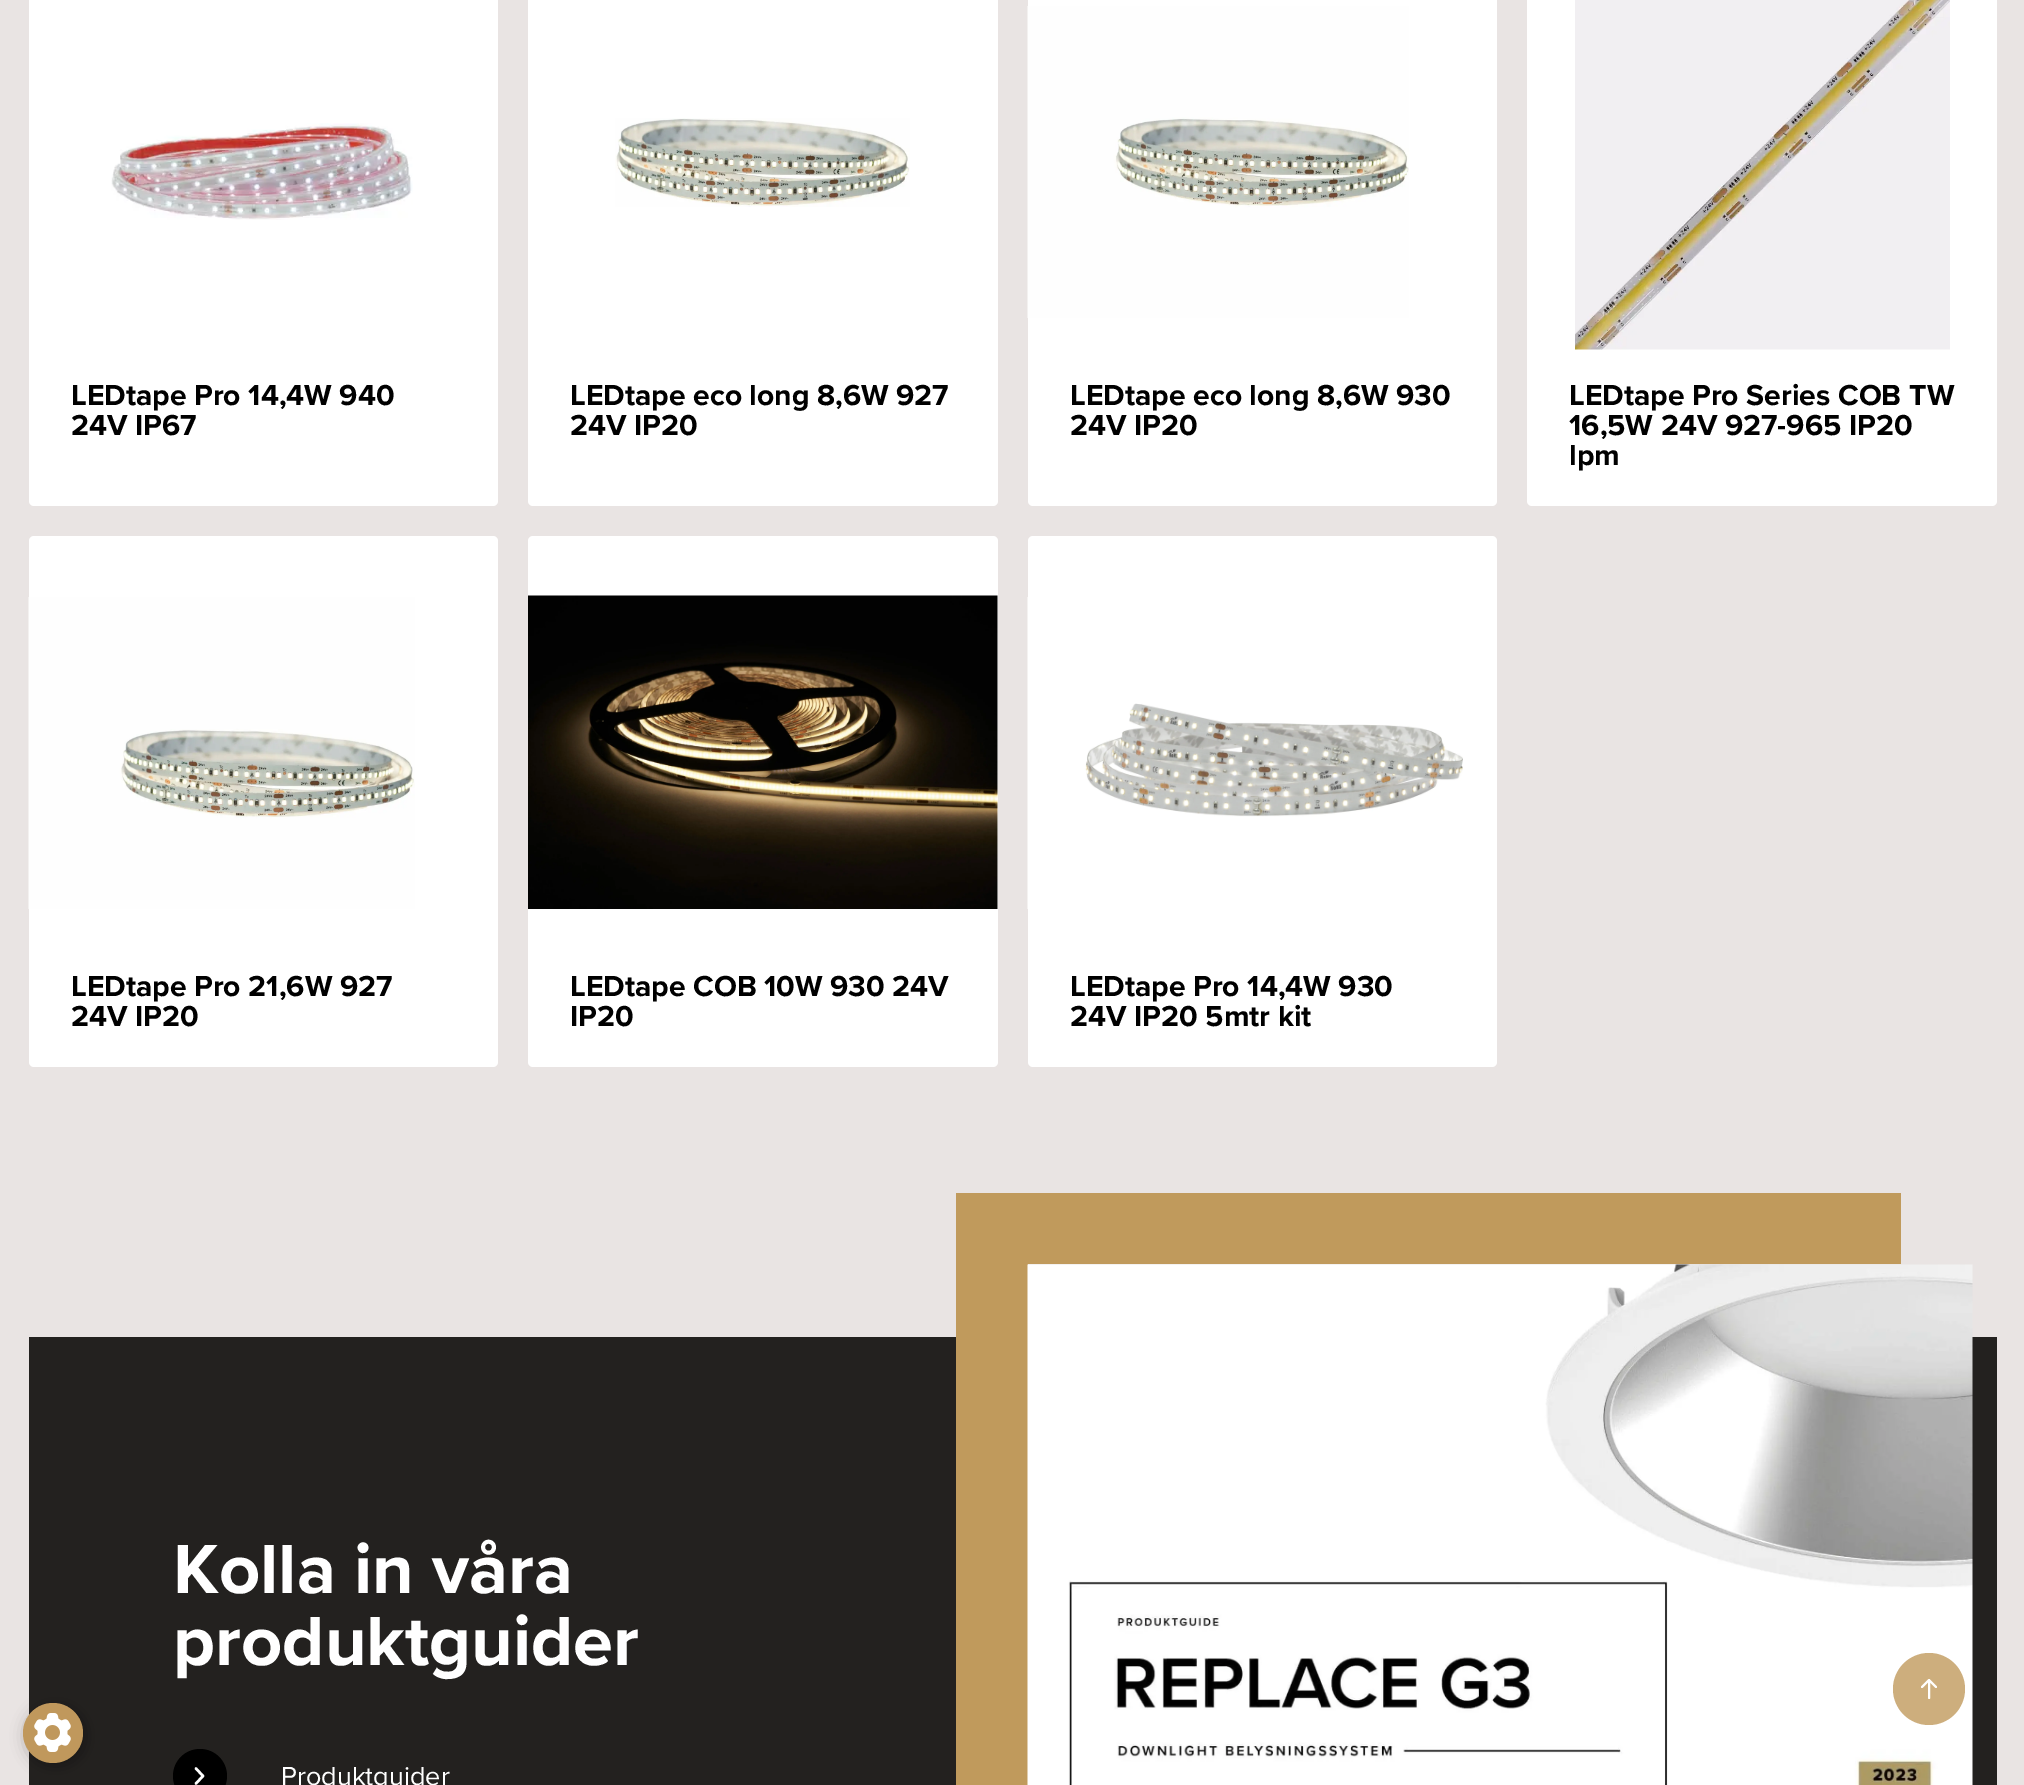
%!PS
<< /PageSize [2024 1785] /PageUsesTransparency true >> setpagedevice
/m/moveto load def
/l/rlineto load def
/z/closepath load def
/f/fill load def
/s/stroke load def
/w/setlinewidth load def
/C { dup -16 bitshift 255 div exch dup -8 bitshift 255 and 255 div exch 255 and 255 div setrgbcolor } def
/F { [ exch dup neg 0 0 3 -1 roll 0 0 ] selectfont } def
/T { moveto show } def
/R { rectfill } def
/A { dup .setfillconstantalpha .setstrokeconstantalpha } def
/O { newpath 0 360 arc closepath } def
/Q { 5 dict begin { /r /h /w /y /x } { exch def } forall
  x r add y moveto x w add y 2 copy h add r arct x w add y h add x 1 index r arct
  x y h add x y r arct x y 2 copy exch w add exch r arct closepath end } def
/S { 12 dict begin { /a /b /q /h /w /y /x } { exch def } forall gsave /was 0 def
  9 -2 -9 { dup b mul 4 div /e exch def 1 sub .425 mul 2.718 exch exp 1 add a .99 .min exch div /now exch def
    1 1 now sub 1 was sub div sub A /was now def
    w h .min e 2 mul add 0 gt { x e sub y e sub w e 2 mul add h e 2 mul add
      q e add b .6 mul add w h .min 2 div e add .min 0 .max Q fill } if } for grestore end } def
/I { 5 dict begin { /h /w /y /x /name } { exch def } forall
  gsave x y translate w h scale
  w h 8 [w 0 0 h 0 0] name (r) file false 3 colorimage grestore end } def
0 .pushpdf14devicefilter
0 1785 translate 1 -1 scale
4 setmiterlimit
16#E9E4E3 C
0 0 2024 1785 R
16#23211F C
29 1337 1968 448 R
16#000000 C
26 1706 60 60 30 7.5 .3 S
16#C0985C C
53 1733 30 O f
(1.rgb) 34 1713 37 39 I
16#FFFFFF C
29 -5 469 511 5 Q f
(2.rgb) 111 123 302 97 I
/ProximaNova-Bold 30 F
16#000000 C
(LEDtape Pro 14,4W 940) 71 405 T
(24V IP67) 71 435 T
16#FFFFFF C
528 -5 470 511 5 Q f
(3.rgb) 615 118 295 89 I
16#000000 C
(LEDtape eco long 8,6W 927) 570 405 T
(24V IP20) 570 435 T
16#FFFFFF C
1028 -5 469 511 5 Q f
(4.rgb) 1027 6 382 312 I
16#000000 C
(LEDtape eco long 8,6W 930) 1070 405 T
(24V IP20) 1070 435 T
16#FFFFFF C
1527 -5 470 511 5 Q f
(5.rgb) 1575 0 375 350 I
16#000000 C
(LEDtape Pro Series COB TW) 1569 405 T
(16,5W 24V 927-965 IP20) 1569 435 T
(lpm) 1569 465 T
16#FFFFFF C
29 536 469 531 5 Q f
(6.rgb) 28 597 387 312 I
16#000000 C
(LEDtape Pro 21,6W 927) 71 996 T
(24V IP20) 71 1026 T
16#FFFFFF C
528 536 470 531 5 Q f
(7.rgb) 528 595 470 314 I
16#000000 C
(LEDtape COB 10W 930 24V) 570 996 T
(IP20) 570 1026 T
16#FFFFFF C
1028 536 469 531 5 Q f
(8.rgb) 1027 597 436 312 I
16#000000 C
(LEDtape Pro 14,4W 930) 1070 996 T
(24V IP20 5mtr kit) 1070 1026 T
/ProximaNova-Bold 72 F
16#FFFFFF C
(Kolla in våra) 173 1593 T
(produktguider) 173 1665 T
16#000000 C
200 1776 27 O f
16#FFFFFF C
2.5 w
1 setlinecap
1 setlinejoin
196 1768.5 m 7 7.5 l -7 7.5 l s
/ProximaNova-Regular 27 F
(Produktguider) 281 1785 T
16#C09A5C C
956 1193 m 0 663 l 72 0 l 0 -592 l 873 0 l 0 -71 l z f
(9.rgb) 1027 1264 946 521 I
16#CDAE7D C
1929 1689 36 O f
16#FFFFFF C
2 w
1922 1687 m 7 -7 l 1929 1680 m 7 7 l 1929 1680 m 0 18 l s
.poppdf14devicefilter showpage
